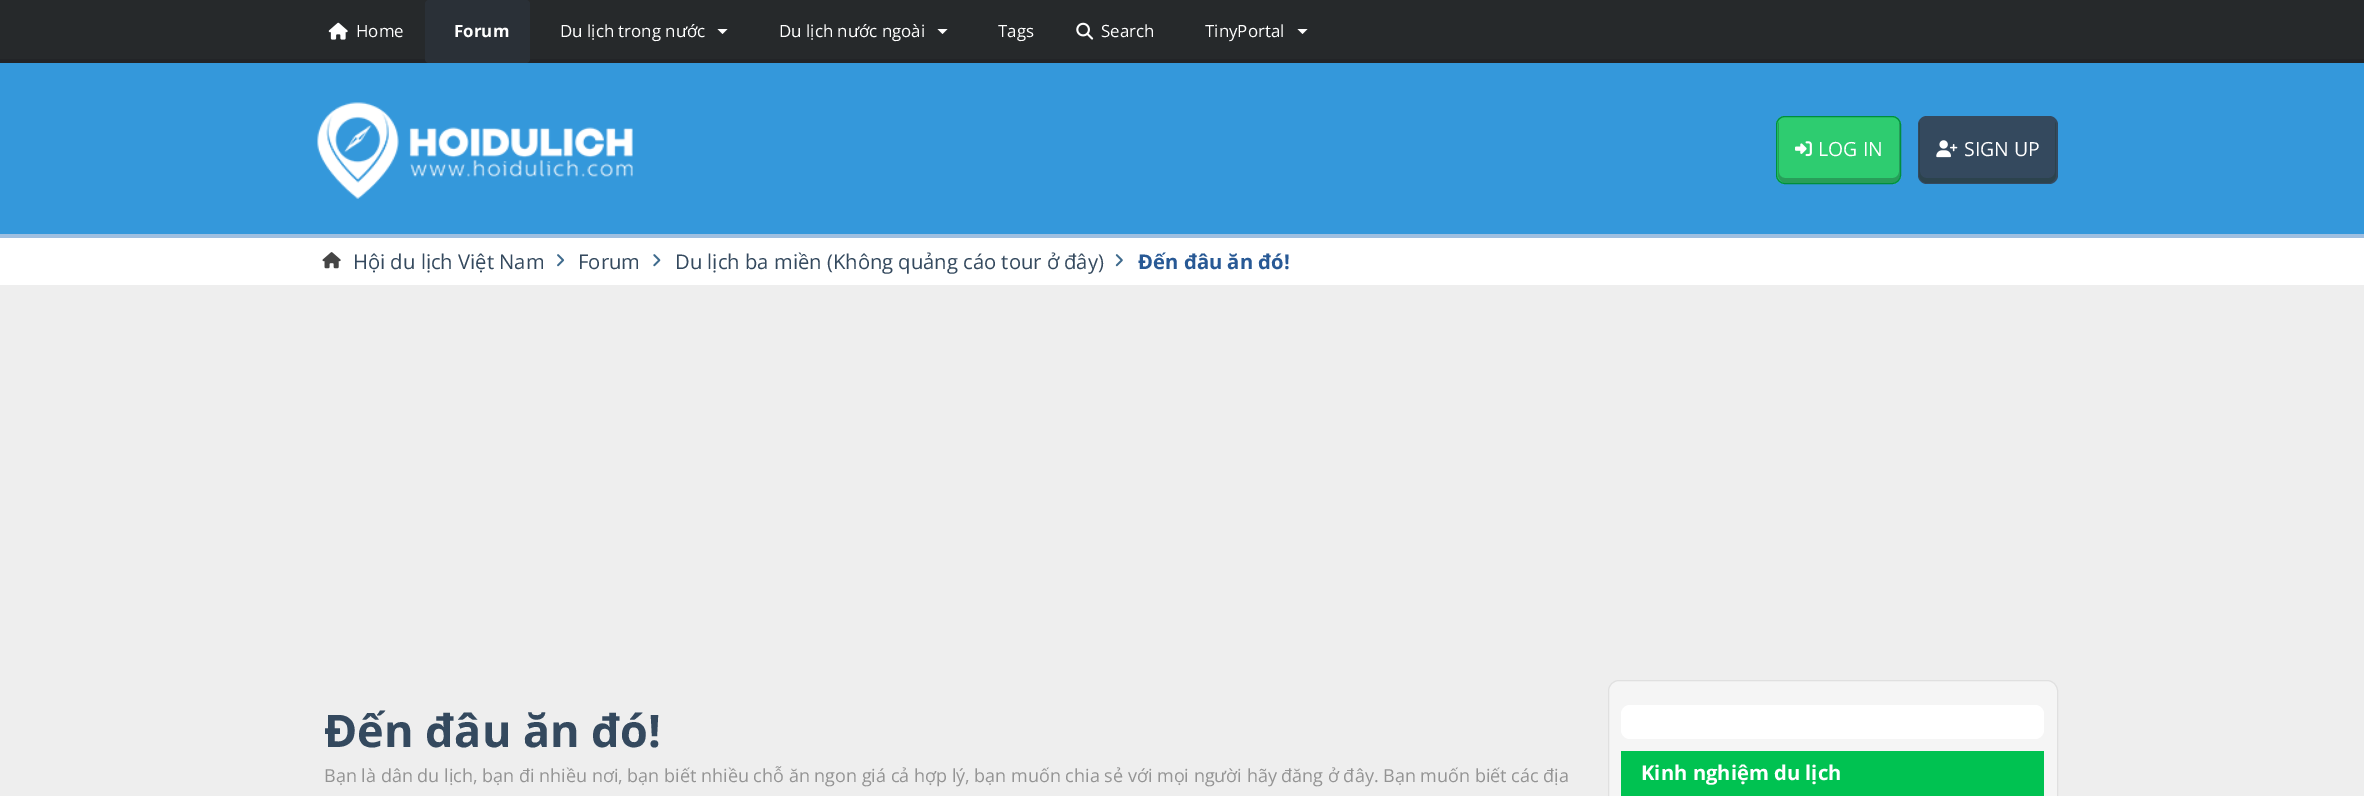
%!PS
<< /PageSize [2364 796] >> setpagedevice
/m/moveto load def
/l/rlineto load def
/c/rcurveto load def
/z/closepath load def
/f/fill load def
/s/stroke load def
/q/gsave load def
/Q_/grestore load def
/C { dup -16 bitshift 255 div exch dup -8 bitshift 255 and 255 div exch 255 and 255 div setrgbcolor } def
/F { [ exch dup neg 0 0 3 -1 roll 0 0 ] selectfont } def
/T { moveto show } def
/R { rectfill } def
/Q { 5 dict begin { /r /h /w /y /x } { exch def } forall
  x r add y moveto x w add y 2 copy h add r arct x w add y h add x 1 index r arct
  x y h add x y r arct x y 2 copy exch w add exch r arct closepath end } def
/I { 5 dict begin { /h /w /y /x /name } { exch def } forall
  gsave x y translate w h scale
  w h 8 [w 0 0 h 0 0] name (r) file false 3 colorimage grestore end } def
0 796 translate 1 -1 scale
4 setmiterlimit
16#EEEEEE C
0 0 2364 796 R
16#26292B C
0 0 2364 59 R
16#222427 C
0 59 2364 4 R
(1.rgb) 328 22 20 18 I
/OpenSans-Regular 16.9 F
16#FFFFFF C
(Home) 356 37 T
16#2A3037 C
425 0 105 63 4 Q f
/OpenSans-Bold 16.9 F
16#FFFFFF C
(Forum) 454 37 T
/OpenSans-Regular 16.9 F
(Du lịch trong nước) 560 37 T
717.5 29 m 10 0 l -5 5 l z f
(Du lịch nước ngoài) 779 37 T
937.5 29 m 10 0 l -5 5 l z f
(Tags) 998 37 T
(2.rgb) 1076 22 18 18 I
(Search) 1101 37 T
(TinyPortal) 1205 37 T
1297.5 29 m 10 0 l -5 5 l z f
16#3498DB C
0 63 2364 171 R
16#9FBFE0 C
0 234 2364 4 R
(3.rgb) 317 102 316 97 I
16#2ECC70 C
1776 116 125 68 9 Q f
16#289E59 C
1779 122 m -1 1 -1 3 -1 4 c 0 49 l 0 4 4 8 8 8 c 106 0 l 4 0 8 -4 8 -8 c 0 -49 l 0 -1 0 -3 -1 -4 c 0 50 l 0 3 -3 6 -6 6 c -108 0 l -4 0 -6 -3 -6 -6 c z f
16#008F3C C
1776.5 116.5 124 67 8.5 Q s
(4.rgb) 1795 141 17 16 I
/OpenSans-Regular 19.5 F
16#FFFFFF C
(LOG IN) 1818 156 T
16#34495E C
1918 116 140 68 9 Q f
16#2C434D C
1920 122 m -1 1 -1 3 -1 4 c 0 49 l 0 4 4 8 8 8 c 121 0 l 4 0 8 -4 8 -8 c 0 -49 l 0 -1 0 -3 -1 -4 c 0 50 l 0 3 -3 6 -6 6 c -123 0 l -3 0 -6 -3 -6 -6 c z f
(5.rgb) 1936 140 22 18 I
16#FFFFFF C
(SIGN UP) 1964 156 T
0 238 2364 47 R
(6.rgb) 322 252 19 17 I
/OpenSans-Regular 20.25 F
16#34495E C
(Hội du lịch Việt Nam) 353 269 T
(7.rgb) 557 254 8 13 I
(Forum) 578 269 T
(8.rgb) 653 254 8 13 I
(Du lịch ba miền \(Không quảng cáo tour ở) 675 269 T
(đây\)) 1064 269 T
(9.rgb) 1115 254 8 13 I
/OpenSans-Bold 20.25 F
16#285995 C
(Đến đâu ăn đó!) 1138 269 T
/OpenSans-Bold 45 F
16#34495E C
(Đến đâu ăn đó!) 324 747 T
/OpenSans-Regular 18 F
16#949494 C
(Bạn là dân du lịch, bạn đi nhiều nơi, bạn biết nhiều chỗ ăn ngon giá cả hợp lý, bạn muốn chia sẻ với mọi người hãy đăng ở đây. Bạn muốn biết các địa) 324 782 T
16#F5F5F5 C
1608.5 680.5 449 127 10.5 Q q f Q_
16#E0E0E0 C
s
16#FFFFFF C
1621 705 423 34 9 Q f
16#00C251 C
1621 751 423 45 R
/OpenSans-Bold 20.25 F
16#FFFFFF C
(Kinh nghiệm du lịch) 1641 780 T
showpage
